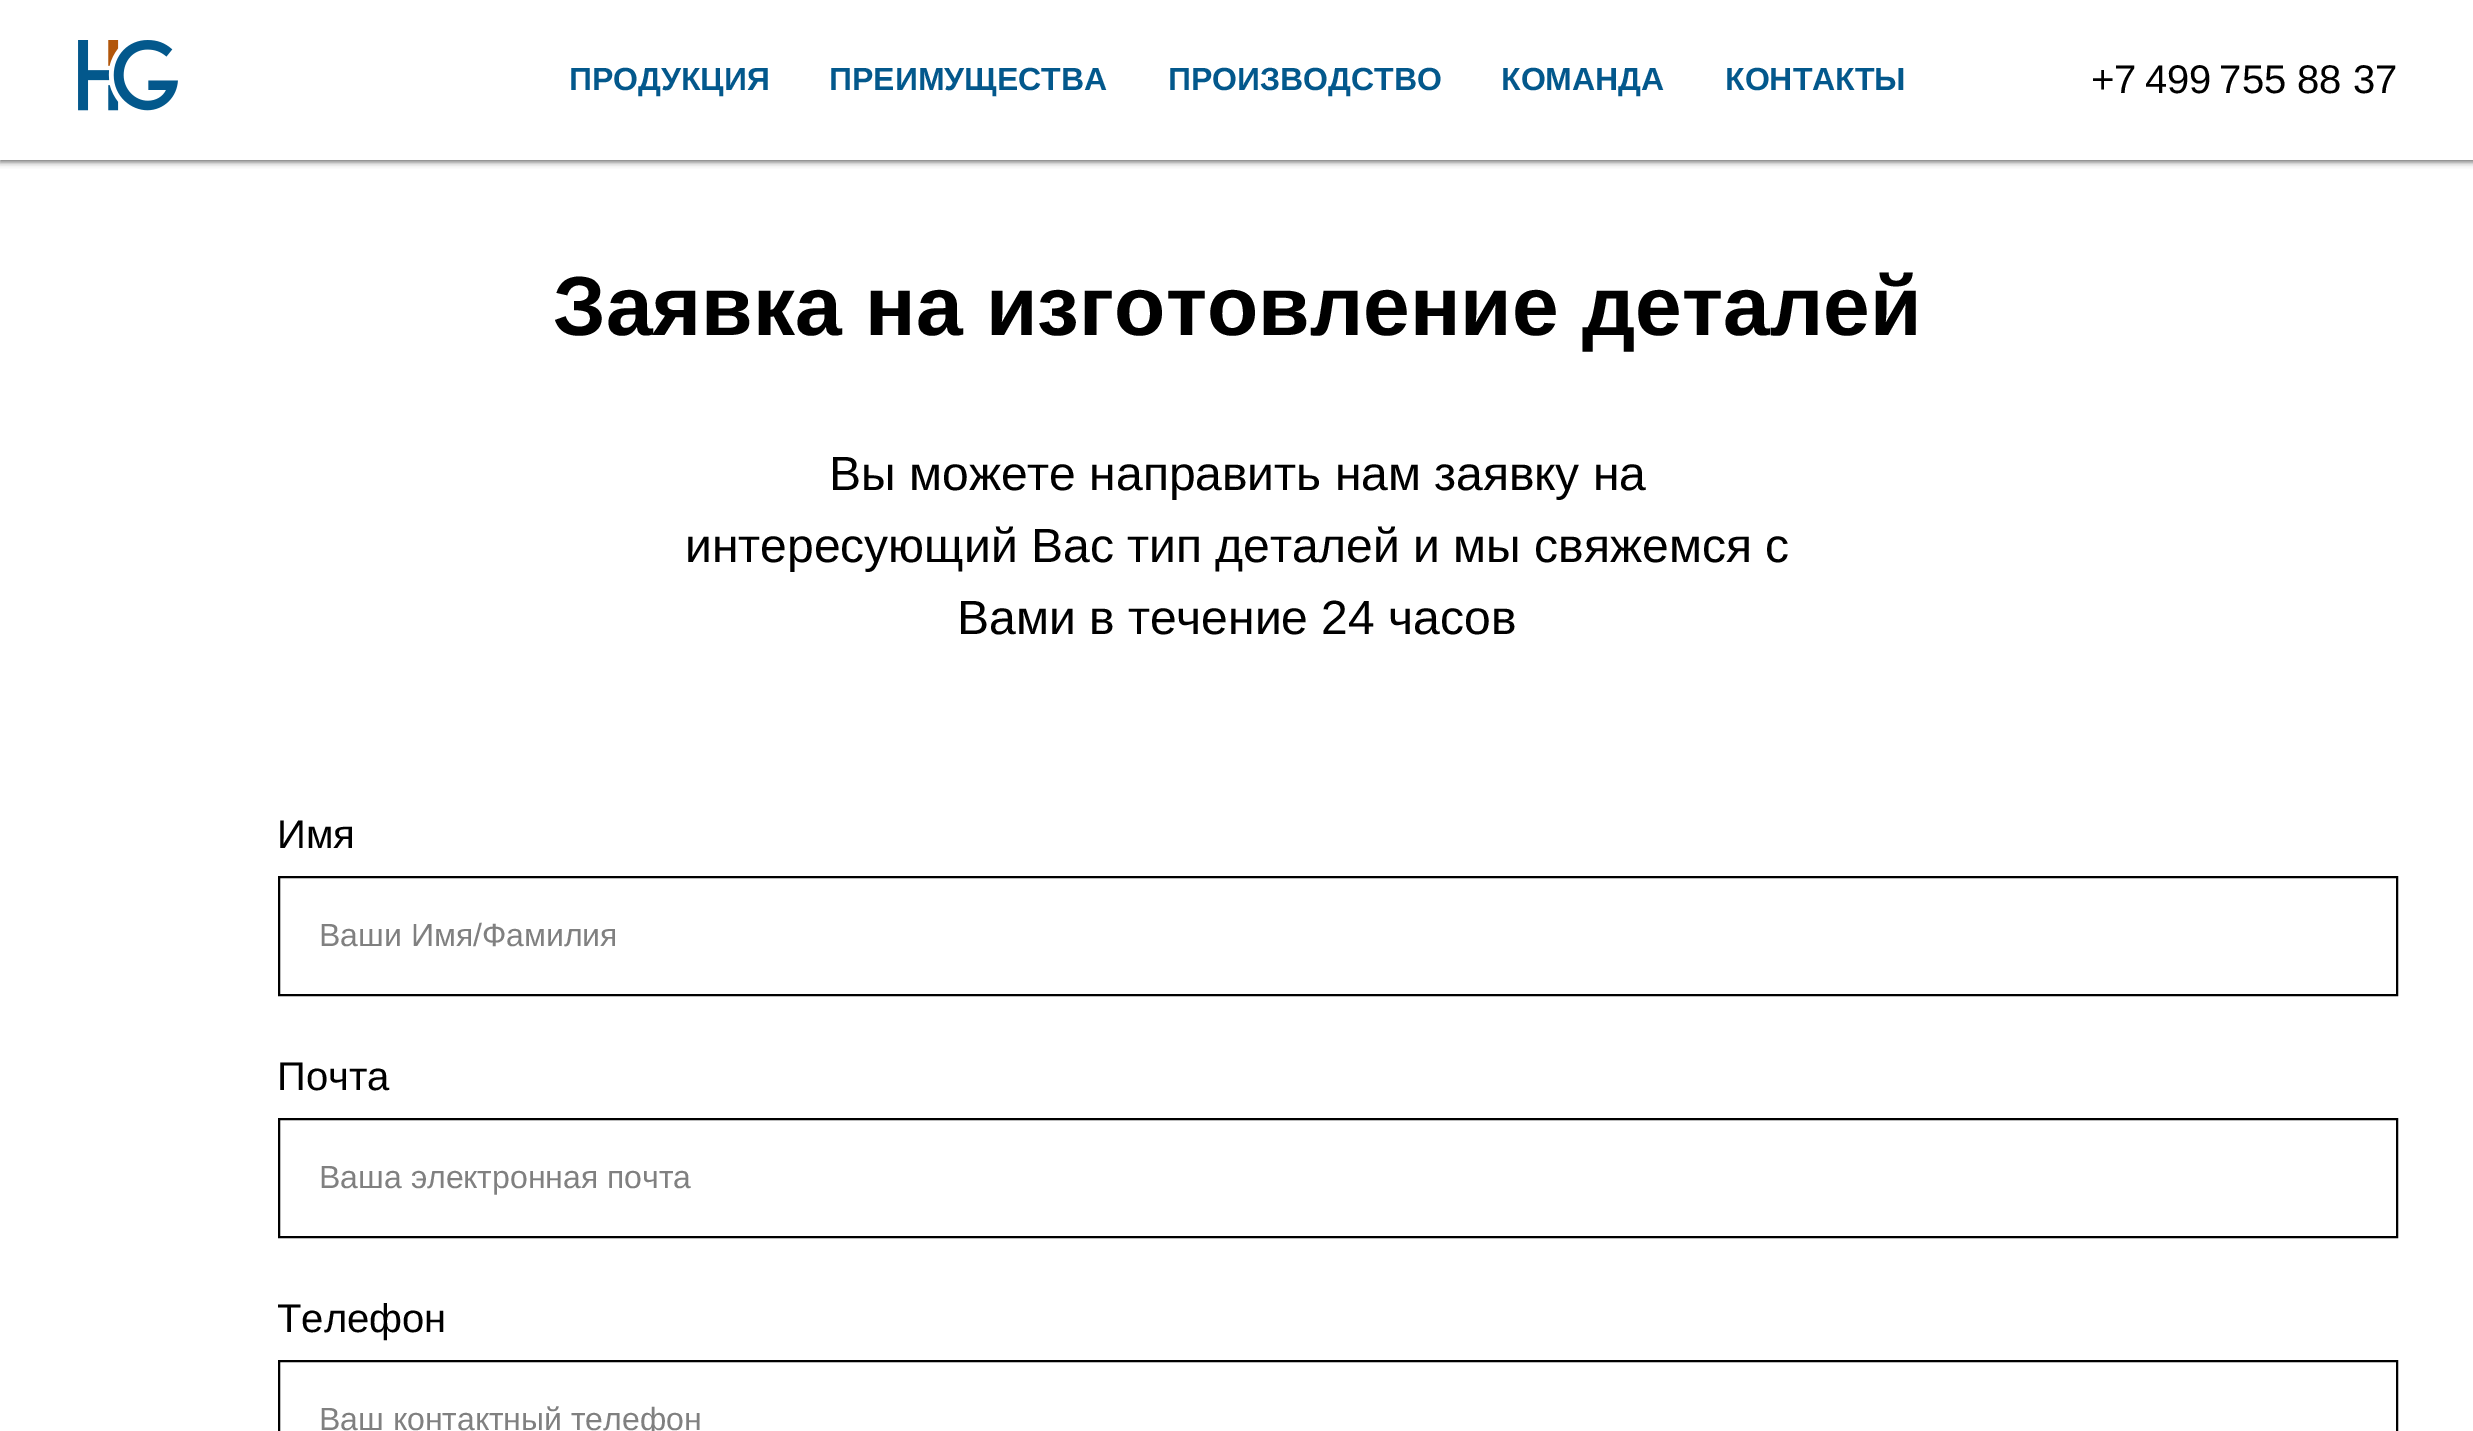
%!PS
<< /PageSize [2473 1431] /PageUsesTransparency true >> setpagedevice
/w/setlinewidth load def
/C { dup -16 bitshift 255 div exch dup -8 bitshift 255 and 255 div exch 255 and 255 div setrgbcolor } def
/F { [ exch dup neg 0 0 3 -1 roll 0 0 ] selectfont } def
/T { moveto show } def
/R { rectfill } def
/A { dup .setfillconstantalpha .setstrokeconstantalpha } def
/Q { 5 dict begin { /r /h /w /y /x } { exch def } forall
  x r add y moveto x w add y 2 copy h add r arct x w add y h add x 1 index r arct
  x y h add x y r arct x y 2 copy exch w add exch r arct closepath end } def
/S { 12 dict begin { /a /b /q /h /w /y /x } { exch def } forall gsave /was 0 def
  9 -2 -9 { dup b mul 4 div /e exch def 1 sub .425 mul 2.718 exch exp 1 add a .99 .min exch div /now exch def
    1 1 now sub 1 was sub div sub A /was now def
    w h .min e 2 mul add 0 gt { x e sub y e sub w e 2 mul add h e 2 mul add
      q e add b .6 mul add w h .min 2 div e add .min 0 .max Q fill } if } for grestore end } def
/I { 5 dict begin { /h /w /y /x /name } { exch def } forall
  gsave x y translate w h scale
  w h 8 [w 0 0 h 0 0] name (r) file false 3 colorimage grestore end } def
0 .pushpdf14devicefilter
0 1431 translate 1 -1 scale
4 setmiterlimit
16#FFFFFF C
0 0 2473 1431 R
16#000000 C
0 2 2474 160 0 3 .6 S
16#FFFFFF C
0 0 2473 160 R
(1.rgb) 78 40 100 71 I
/LiberationSans-Bold 32 F
16#03588C C
(ПРОДУКЦИЯ) 569 90 T
(ПРЕИМУЩЕСТВА) 829 90 T
(ПРОИЗВОДСТВО) 1168 90 T
(КОМАНДА) 1501 90 T
(КОНТАКТЫ) 1725 90 T
/LiberationSans-Regular 40 F
16#000000 C
(+7 499 755 88 37) 2091 93 T
/LiberationSans-Bold 84 F
(Заявка на изготовление деталей) 553 335 T
/LiberationSans-Regular 48 F
(Вы можете направить нам заявку на) 829 490 T
(интересующий Вас тип деталей и мы свяжемся с) 685 562 T
(Вами в течение 24 часов) 957 634 T
/LiberationSans-Regular 40 F
(Имя) 277 848 T
2 w
279 877 2118 118 rectstroke
/LiberationSans-Regular 32 F
16#808080 C
(Ваши Имя/Фамилия) 319 946 T
/LiberationSans-Regular 40 F
16#000000 C
(Почта) 277 1090 T
279 1119 2118 118 rectstroke
/LiberationSans-Regular 32 F
16#808080 C
(Ваша электронная почта) 319 1188 T
/LiberationSans-Regular 40 F
16#000000 C
(Телефон) 277 1332 T
279 1361 2118 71 rectstroke
/LiberationSans-Regular 32 F
16#808080 C
(Ваш контактный телефон) 319 1430 T
.poppdf14devicefilter showpage
